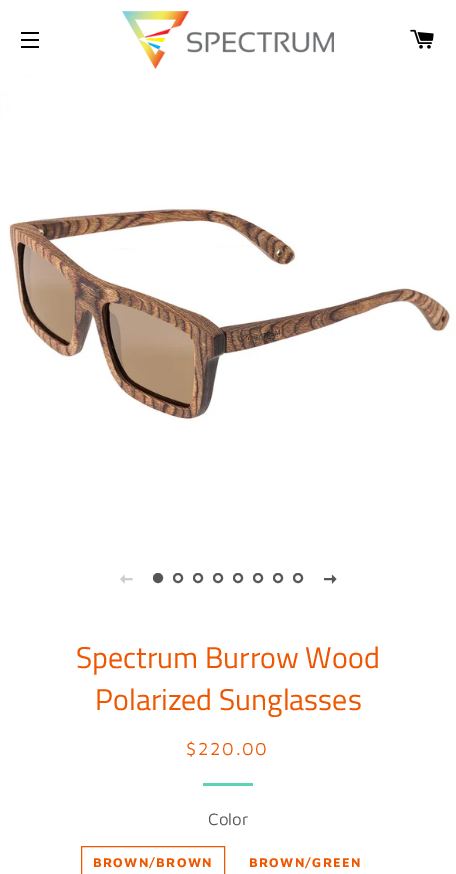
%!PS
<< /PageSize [456 874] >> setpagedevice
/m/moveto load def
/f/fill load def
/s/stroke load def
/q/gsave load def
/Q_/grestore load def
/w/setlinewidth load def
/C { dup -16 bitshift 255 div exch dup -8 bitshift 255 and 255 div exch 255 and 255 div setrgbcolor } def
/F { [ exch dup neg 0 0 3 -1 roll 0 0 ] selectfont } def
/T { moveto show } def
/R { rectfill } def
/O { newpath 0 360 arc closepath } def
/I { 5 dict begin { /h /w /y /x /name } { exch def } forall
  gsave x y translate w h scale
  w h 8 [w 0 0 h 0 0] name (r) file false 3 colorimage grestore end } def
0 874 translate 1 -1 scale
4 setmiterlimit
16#FFFFFF C
0 0 456 874 R
16#000000 C
21 32 18 2 R
21 39 18 2 R
21 46 18 2 R
(1.rgb) 122 11 212 58 I
(2.rgb) 410 29 24 20 I
(3.rgb) 0 75 456 456 I
(4.rgb) 120 574 13 10 I
16#565656 C
158 578 4 O q f Q_
2 w
s
178 578 4 O s
198 578 4 O s
218 578 4 O s
238 578 4 O s
258 578 4 O s
278 578 4 O s
298 578 4 O s
(5.rgb) 324 574 13 10 I
/TitilliumWeb-Regular 30 F
16#EF5600 C
(Spectrum Burrow Wood) 76 668 T
(Polarized Sunglasses) 95 710 T
/MavenPro-Regular 18 F
186 755 m 1.75 0 ($220.00) ashow
16#5DD2B4 C
203 783 50 3 R
/MavenPro-Regular 17 F
16#565656 C
(Color) 208 825 T
16#EF5600 C
1 w
81.5 846.5 143 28 rectstroke
/MavenPro-Bold 13 F
93 867 m 1.25 0 (BROWN/BROWN) ashow
249 867 m 1.25 0 (BROWN/GREEN) ashow
showpage
